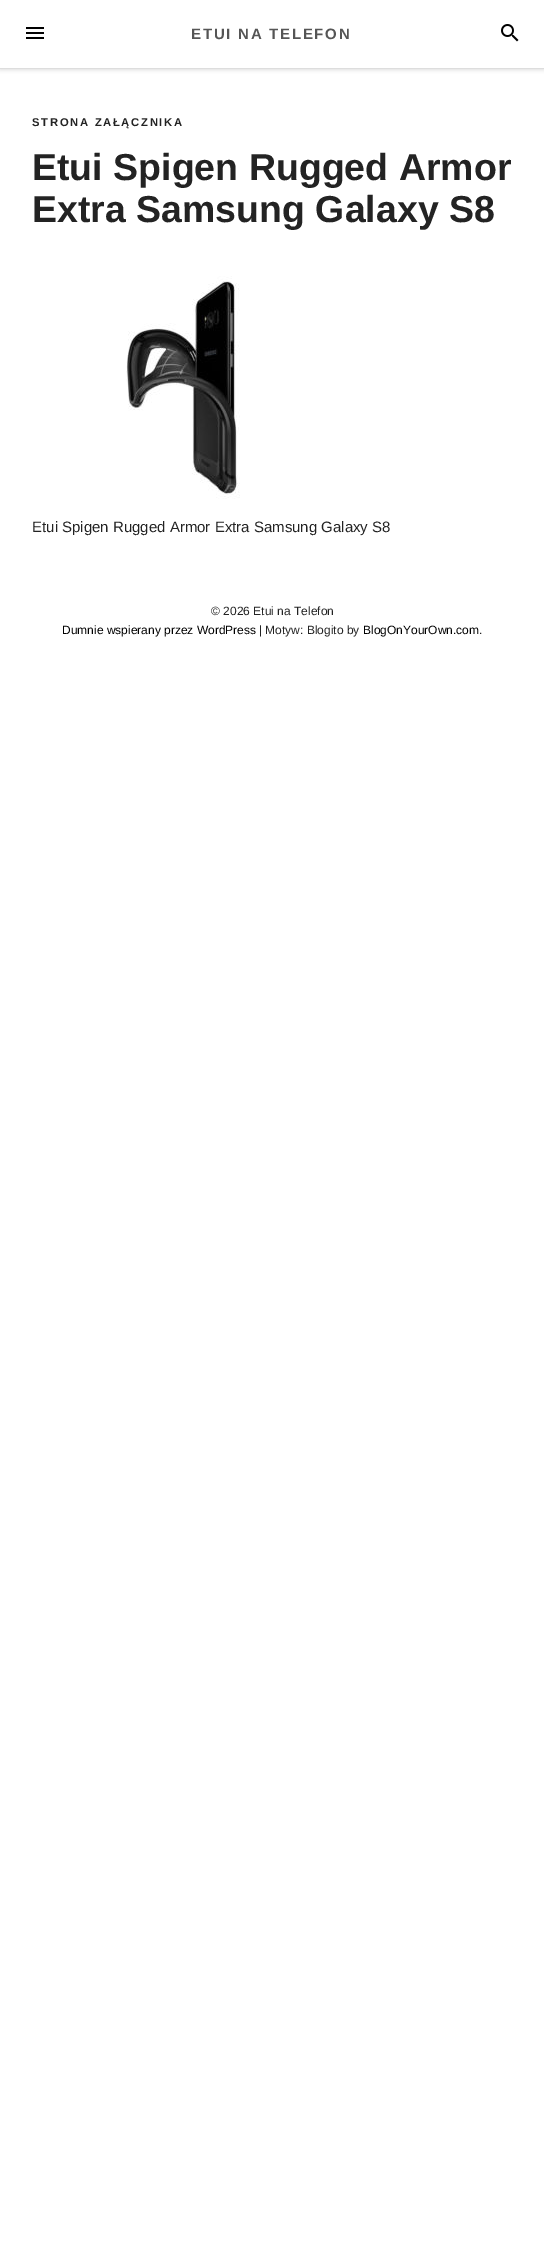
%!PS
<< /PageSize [544 2248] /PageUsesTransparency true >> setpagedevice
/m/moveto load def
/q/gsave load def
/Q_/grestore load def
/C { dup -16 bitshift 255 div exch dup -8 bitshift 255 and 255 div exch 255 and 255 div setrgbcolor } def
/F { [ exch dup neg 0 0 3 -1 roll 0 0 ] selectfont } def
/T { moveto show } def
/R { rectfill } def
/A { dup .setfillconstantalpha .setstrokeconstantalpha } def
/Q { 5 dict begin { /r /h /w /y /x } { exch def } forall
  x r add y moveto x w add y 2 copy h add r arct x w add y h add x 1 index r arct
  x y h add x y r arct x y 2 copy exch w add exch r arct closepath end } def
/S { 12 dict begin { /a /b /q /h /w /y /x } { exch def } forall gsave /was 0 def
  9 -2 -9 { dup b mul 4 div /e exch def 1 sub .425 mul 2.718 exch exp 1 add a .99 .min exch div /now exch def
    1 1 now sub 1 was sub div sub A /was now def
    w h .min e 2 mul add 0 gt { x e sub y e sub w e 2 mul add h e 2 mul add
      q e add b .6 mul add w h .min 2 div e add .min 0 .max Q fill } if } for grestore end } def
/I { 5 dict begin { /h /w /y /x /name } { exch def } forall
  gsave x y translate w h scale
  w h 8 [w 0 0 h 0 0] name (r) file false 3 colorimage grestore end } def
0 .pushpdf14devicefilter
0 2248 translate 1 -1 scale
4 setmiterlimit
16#FFFFFF C
0 0 544 2248 R
q
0 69 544 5 rectclip
16#DDDDDD C
0 1 544 69 0 2 1 S
Q_
16#DDDDDD C
0 68 544 1 R
(1.rgb) 26 27 18 12 I
/LiberationSans-Bold 15 F
16#555555 C
191 39 m 1.75 0 (ETUI NA TELEFON) ashow
(2.rgb) 501 24 18 18 I
/LiberationSans-Bold 11.25 F
16#232323 C
32 126 m 1.7 0 (STRONA ZAŁĄCZNIKA) ashow
/LiberationSans-Bold 37.5 F
(Etui Spigen Rugged Armor) 32 180 T
(Extra Samsung Galaxy S8) 32 222 T
(3.rgb) 126 276 114 223 I
/LiberationSans-Regular 15 F
(Etui Spigen Rugged Armor Extra Samsung Galaxy S8) 32 532 T
/LiberationSans-Regular 12 F
(© 2026 Etui na Telefon) 211 615 T
16#000000 C
(Dumnie wspierany przez WordPress) 62 634 T
16#232323 C
(| Motyw: Blogito by) 259 634 T
16#000000 C
(BlogOnYourOwn.com) 363 634 T
16#232323 C
(.) 479 634 T
.poppdf14devicefilter showpage
